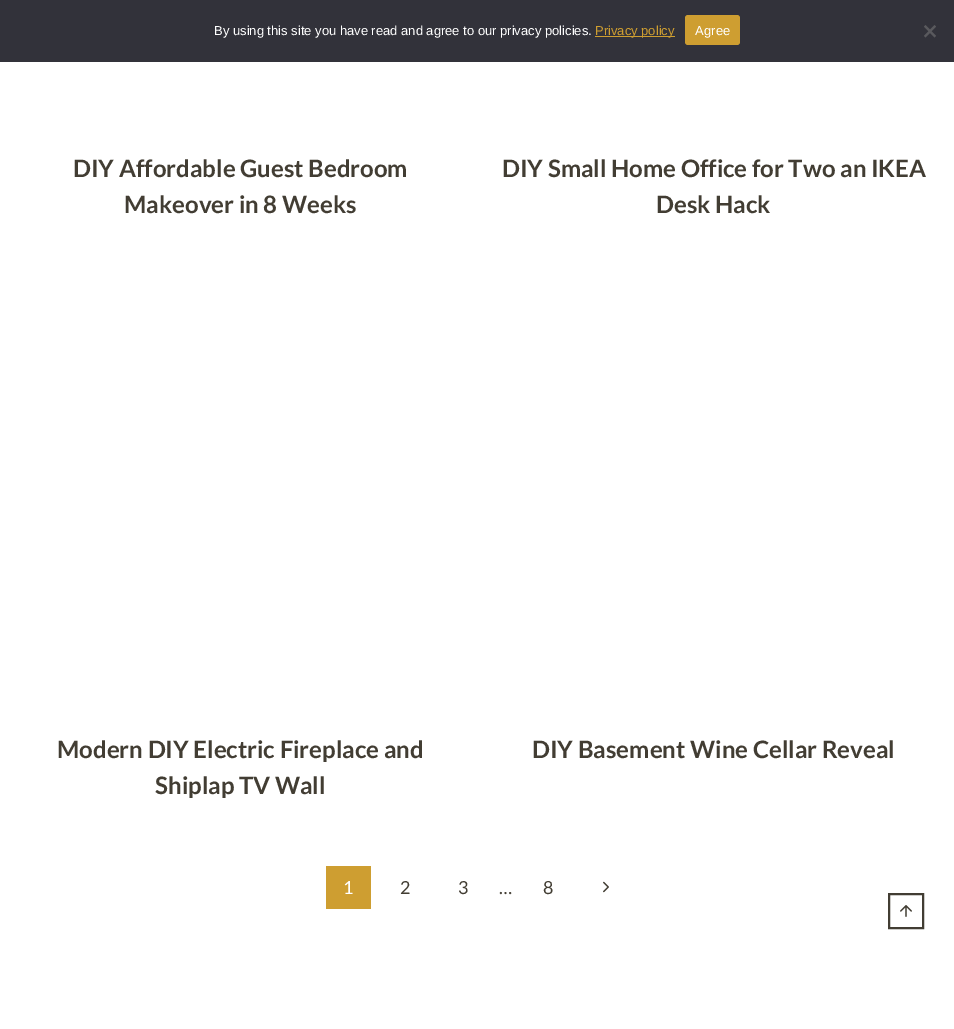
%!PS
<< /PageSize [954 1029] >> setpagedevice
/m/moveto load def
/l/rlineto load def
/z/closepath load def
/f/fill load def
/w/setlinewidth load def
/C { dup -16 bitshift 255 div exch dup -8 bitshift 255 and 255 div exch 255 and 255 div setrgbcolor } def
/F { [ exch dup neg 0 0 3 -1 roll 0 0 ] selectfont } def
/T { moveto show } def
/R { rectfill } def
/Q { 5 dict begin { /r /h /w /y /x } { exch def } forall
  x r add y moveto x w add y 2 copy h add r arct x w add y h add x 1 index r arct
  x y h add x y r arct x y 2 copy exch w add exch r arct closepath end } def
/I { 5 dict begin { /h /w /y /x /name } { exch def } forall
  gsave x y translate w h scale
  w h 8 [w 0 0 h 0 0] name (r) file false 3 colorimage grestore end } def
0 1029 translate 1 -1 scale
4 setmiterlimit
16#FFFFFF C
0 0 954 1029 R
16#32323A C
0 0 954 62 R
/LiberationSans-Regular 13 F
16#FFFFFF C
(By using this site you have read and agree to our privacy policies.) 214 35 T
16#CE9E31 C
595 36 80 1 R
(Privacy policy) 595 35 T
685 15 55 30 3 Q f
16#FFFFFF C
695 35 m .25 0 (Agree) ashow
16#59595D C
934.5 25 m 1.5 1.5 l -10.5 11 l -1.5 -1.5 l z f
924 26.5 m 1.5 -1.5 l 10.5 11 l -1.5 1.5 l z f
/Lato-Bold 24 F
16#423D33 C
(DIY Affordable Guest Bedroom) 73 177 T
(Makeover in 8 Weeks) 124 213 T
(DIY Small Home Office for Two an IKEA) 502 177 T
(Desk Hack) 656 213 T
(Modern DIY Electric Fireplace and) 57 758 T
(Shiplap TV Wall) 155 794 T
(DIY Basement Wine Cellar Reveal) 532 758 T
16#CE9E31 C
326 866 45 43 R
/Lato-Regular 18 F
16#FFFFFF C
(1) 343 894 T
16#423D33 C
(2) 400 894 T
(3) 458 894 T
(…) 499 894 T
(8) 543 894 T
(1.rgb) 603 881 6 12 I
2 w
889 894 34 34 rectstroke
(2.rgb) 900 905 12 12 I
showpage
